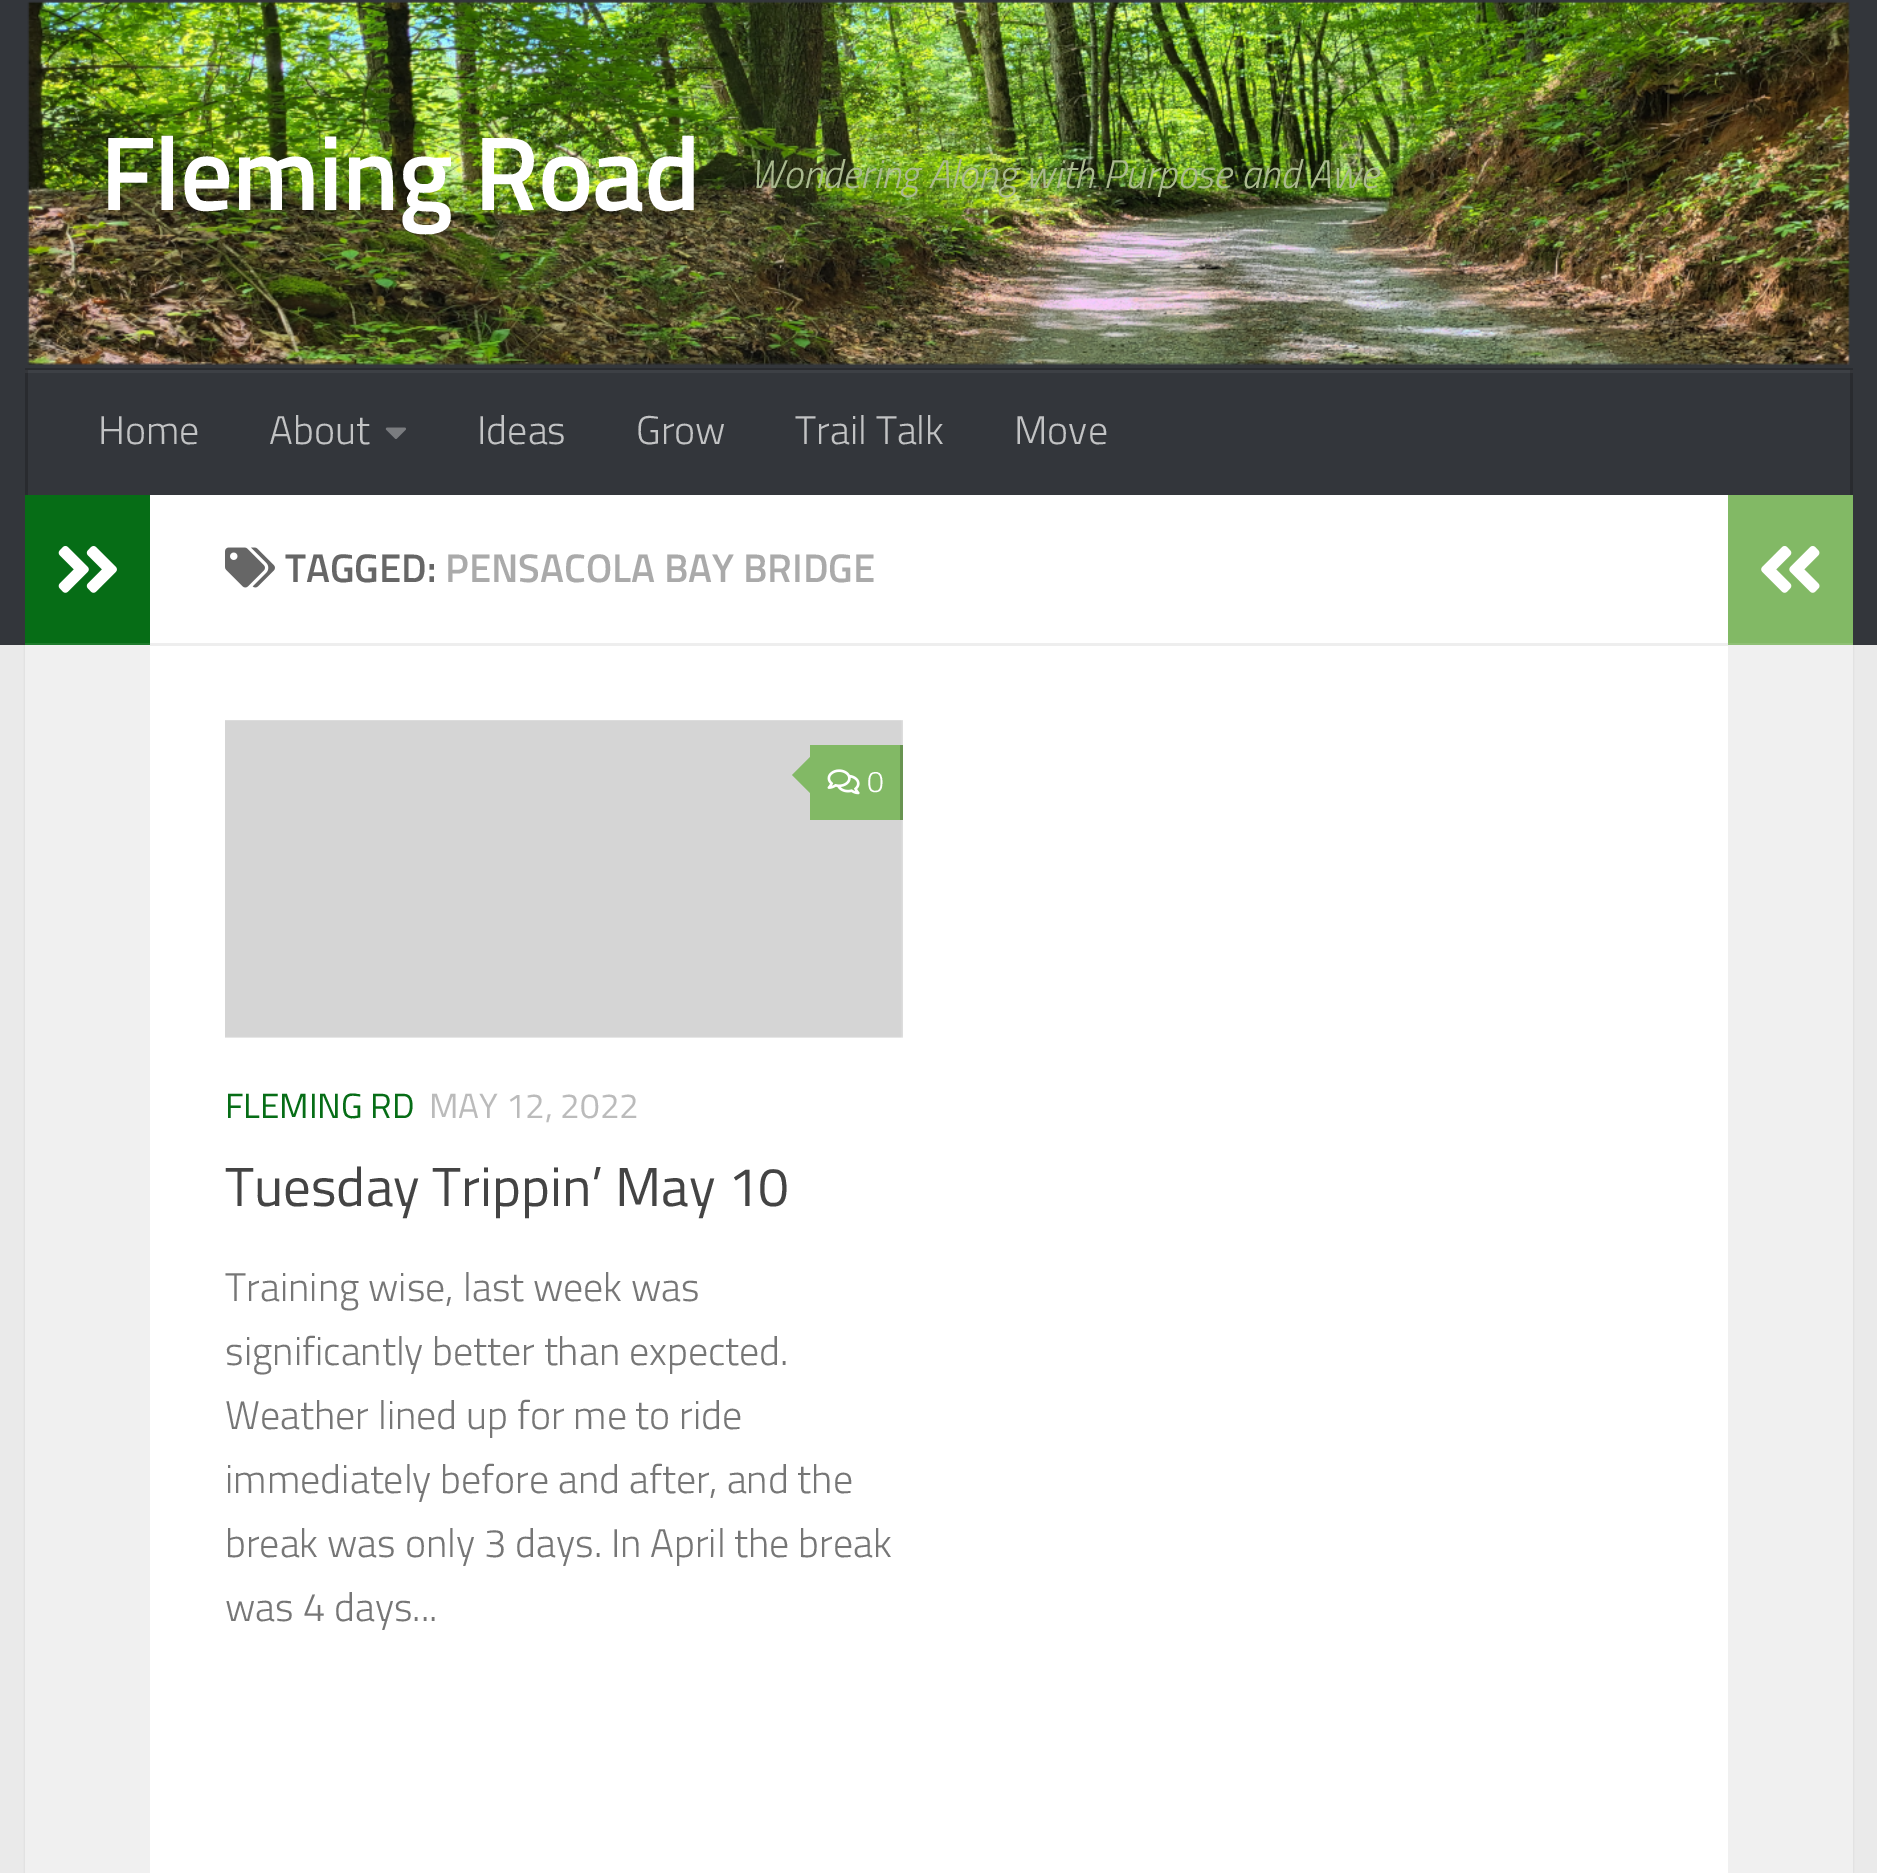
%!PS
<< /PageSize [1877 1873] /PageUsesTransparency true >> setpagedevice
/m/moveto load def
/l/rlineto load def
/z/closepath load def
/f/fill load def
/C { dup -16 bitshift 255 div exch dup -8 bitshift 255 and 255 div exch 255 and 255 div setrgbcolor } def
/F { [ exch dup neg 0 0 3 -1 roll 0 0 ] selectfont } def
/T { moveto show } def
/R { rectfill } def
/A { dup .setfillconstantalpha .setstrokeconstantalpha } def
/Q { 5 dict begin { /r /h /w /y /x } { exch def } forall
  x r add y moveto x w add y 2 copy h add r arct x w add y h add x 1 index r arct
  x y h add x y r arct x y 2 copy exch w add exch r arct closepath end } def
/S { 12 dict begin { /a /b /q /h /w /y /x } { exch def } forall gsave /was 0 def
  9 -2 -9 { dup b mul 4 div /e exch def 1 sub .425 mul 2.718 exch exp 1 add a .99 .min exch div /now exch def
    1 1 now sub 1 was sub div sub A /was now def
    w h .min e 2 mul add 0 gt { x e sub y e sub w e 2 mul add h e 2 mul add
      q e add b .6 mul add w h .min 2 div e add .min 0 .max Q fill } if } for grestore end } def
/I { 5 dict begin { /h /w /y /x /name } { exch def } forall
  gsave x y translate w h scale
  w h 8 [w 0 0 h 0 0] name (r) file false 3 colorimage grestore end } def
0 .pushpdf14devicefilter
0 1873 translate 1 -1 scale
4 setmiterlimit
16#EAEAEA C
0 0 1877 1873 R
16#000000 C
25 498 1828 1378 0 1 .1 S
16#33363B C
0 0 1877 645 R
(1.rgb) 27 1 1823 364 I
/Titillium-SemiBold 105 F
16#FFFFFF C
100 210 m -1.25 0 (Fleming Road) ashow
/Titillium-LightItalic 40 F
16#ABBA90 C
(Wondering Along with Purpose and Awe) 750 188 T
16#292B2F C
25 368 m 0 2 l 1827 0 l 0 123 l 1 0 l 0 -125 l z f
1850 370 3 125 R
25 370 3 125 R
0.05 A
16#FFFFFF C
25 370 1828 3 R
/Titillium-Light 40 F
1 A
16#C2C3C4 C
(Home) 98 444 T
(About) 269 444 T
(2.rgb) 385 427 21 12 I
(Ideas) 477 444 T
(Grow) 636 444 T
(Trail Talk) 795 444 T
(Move) 1014 444 T
16#FFFFFF C
150 495 1578 1378 R
16#F0F0F0 C
25 646 125 1227 R
16#F2F2F2 C
25 645 125 1 R
16#066D16 C
25 495 125 148 R
16#1F7C2D C
25 643 125 2 R
(3.rgb) 58 546 59 47 I
16#EEEEEE C
150 643 1578 3 R
(4.rgb) 225 547 50 41 I
/Titillium-SemiBold 40 F
16#666666 C
(TAGGED:) 285 582 T
16#AAAAAA C
(PENSACOLA BAY BRIDGE) 445 582 T
(5.rgb) 225 720 678 318 I
16#82B965 C
810 745 90 75 R
16#689451 C
900 745 3 75 R
16#82B965 C
815 752 m 0 46 l -23 -23 l z f
(6.rgb) 827 769 33 26 I
/Titillium-Light 30 F
16#FFFFFF C
(0) 867 792 T
/Titillium-Regular 35 F
16#066D16 C
(FLEMING RD) 225 1118 T
16#BBBBBB C
(MAY 12, 2022) 429 1118 T
/Titillium-Regular 55 F
16#444444 C
(Tuesday Trippin’ May 10) 225 1206 T
/Titillium-Light 40 F
16#767676 C
(Training wise, last week was) 225 1301 T
(significantly better than expected.) 225 1365 T
(Weather lined up for me to ride) 225 1429 T
(immediately before and after, and the) 225 1493 T
(break was only 3 days. In April the break) 225 1557 T
(was 4 days...) 225 1621 T
16#82B965 C
1728 495 125 150 R
0.1 A
16#FFFFFF C
1728 643 125 2 R
1 A
(7.rgb) 1761 546 59 47 I
16#F0F0F0 C
1728 645 125 1228 R
.poppdf14devicefilter showpage
